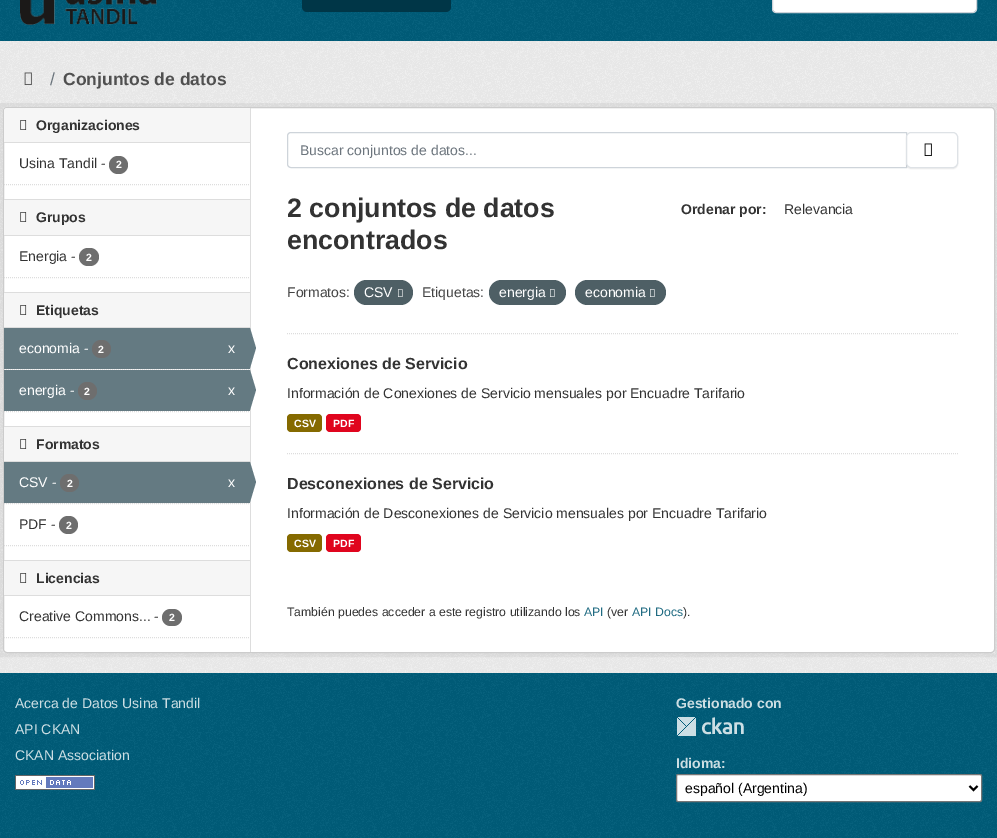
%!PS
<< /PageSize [997 838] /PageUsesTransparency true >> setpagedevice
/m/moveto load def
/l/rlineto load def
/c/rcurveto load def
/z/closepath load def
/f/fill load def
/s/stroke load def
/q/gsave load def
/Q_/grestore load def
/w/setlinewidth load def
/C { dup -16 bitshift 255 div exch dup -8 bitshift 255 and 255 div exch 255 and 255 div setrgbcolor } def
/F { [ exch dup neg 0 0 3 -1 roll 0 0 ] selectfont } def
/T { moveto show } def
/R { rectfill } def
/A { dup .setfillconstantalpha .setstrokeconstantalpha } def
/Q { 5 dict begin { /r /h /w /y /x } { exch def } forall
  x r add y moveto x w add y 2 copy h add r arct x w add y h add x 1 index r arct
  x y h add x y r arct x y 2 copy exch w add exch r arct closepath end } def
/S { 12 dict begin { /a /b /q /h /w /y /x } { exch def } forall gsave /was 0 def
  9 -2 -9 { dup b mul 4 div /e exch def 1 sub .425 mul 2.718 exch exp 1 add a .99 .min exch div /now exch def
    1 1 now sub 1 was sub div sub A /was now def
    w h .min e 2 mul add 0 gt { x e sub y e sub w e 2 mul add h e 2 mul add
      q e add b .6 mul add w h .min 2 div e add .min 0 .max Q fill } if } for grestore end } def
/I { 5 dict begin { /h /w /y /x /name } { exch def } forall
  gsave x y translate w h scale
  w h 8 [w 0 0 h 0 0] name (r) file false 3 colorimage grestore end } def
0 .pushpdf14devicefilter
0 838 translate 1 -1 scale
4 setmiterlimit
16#005D7A C
0 0 997 838 R
(1.rgb) 0 0 997 41 I
(2.rgb) 20 0 137 25 I
16#003647 C
302 -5 149 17 5 Q f
16#FFFFFF C
773 -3 203 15 3 Q f
16#CED4DA C
772.5 -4.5 204 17 3.5 Q s
16#EEEEEE C
0 41 997 632 R
(3.rgb) 0 41 997 632 I
(4.rgb) 24 72 8 13 I
/LiberationSans-Regular 17.5 F
16#6C757D C
(/) 50 85 T
/LiberationSans-Bold 17.5 F
16#505050 C
(Conjuntos de datos) 63 85 T
0.05 A
16#000000 C
4 w
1 105 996 550 rectstroke
1 A
16#FFFFFF C
3.5 107.5 991 545 3.5 Q q f Q_
16#CCCCCC C
1 w
s
16#F6F6F6 C
7 108 m 243 0 l 0 35 l -246 0 l 0 -32 l 0 -1.5 1.5 -3 3 -3 c z f
16#DDDDDD C
4 142 246 1 R
(5.rgb) 20 120 7 10 I
/LiberationSans-Bold 14 F
16#333333 C
(Organizaciones) 36 130 T
/LiberationSans-Regular 14 F
(Usina Tandil -) 19 168 T
16#6E6E6E C
109 156 19 18 9 Q f
/LiberationSans-Bold 10.5 F
16#FFFFFF C
(2) 116 168 T
16#DDDDDD C
[1 1] 0 setdash
4 184.5 m 246 0 l s
16#F6F6F6 C
4 200 246 35 R
16#DDDDDD C
4 199 246 1 R
4 235 246 1 R
(5.rgb) 20 212 7 10 I
/LiberationSans-Bold 14 F
16#333333 C
(Grupos) 36 222 T
/LiberationSans-Regular 14 F
(Energia -) 19 261 T
16#6E6E6E C
79 248 20 18 9 Q f
/LiberationSans-Bold 10.5 F
16#FFFFFF C
(2) 86 261 T
16#DDDDDD C
4 277.5 m 246 0 l s
16#F6F6F6 C
4 293 246 34 R
16#DDDDDD C
4 292 246 1 R
4 327 246 1 R
(5.rgb) 20 305 7 10 I
/LiberationSans-Bold 14 F
16#333333 C
(Etiquetas) 36 315 T
16#F6F6F6 C
5 369 245 1 R
16#DDDDDD C
4 369.5 m 246 0 l s
16#647A82 C
4 328 246 41 R
/LiberationSans-Regular 14 F
16#FFFFFF C
(economia -) 19 353 T
16#6E6E6E C
92 340 19 18 9 Q f
/LiberationSans-Bold 10.5 F
16#FFFFFF C
(2) 98 353 T
/LiberationSans-Regular 14 F
(x) 228 353 T
16#DDDDDD C
250 108 1 544 R
16#647A82 C
250 368 m 0 -40 l 6 20 l z f
4 370 246 41 R
16#FFFFFF C
(energia -) 19 395 T
16#6E6E6E C
78 382 19 18 9 Q f
/LiberationSans-Bold 10.5 F
16#FFFFFF C
(2) 84 395 T
/LiberationSans-Regular 14 F
(x) 228 395 T
16#647A82 C
250 410 m 0 -40 l 6 20 l z f
16#DDDDDD C
4 411.5 m 246 0 l s
16#F6F6F6 C
4 427 246 34 R
16#DDDDDD C
4 426 246 1 R
4 461 246 1 R
(5.rgb) 20 439 7 10 I
/LiberationSans-Bold 14 F
16#333333 C
(Formatos) 36 449 T
16#F6F6F6 C
5 503 245 1 R
16#DDDDDD C
4 503.5 m 246 0 l s
16#647A82 C
4 462 246 41 R
/LiberationSans-Regular 14 F
16#FFFFFF C
(CSV -) 19 487 T
16#6E6E6E C
60 474 19 18 9 Q f
/LiberationSans-Bold 10.5 F
16#FFFFFF C
(2) 67 487 T
/LiberationSans-Regular 14 F
(x) 228 487 T
16#647A82 C
250 502 m 0 -40 l 6 20 l z f
16#333333 C
(PDF -) 19 529 T
16#6E6E6E C
59 516 19 18 9 Q f
/LiberationSans-Bold 10.5 F
16#FFFFFF C
(2) 66 529 T
16#DDDDDD C
4 545.5 m 246 0 l s
16#F6F6F6 C
4 561 246 34 R
16#DDDDDD C
4 560 246 1 R
4 595 246 1 R
(5.rgb) 20 573 7 10 I
/LiberationSans-Bold 14 F
16#333333 C
(Licencias) 36 583 T
/LiberationSans-Regular 14 F
(Creative Commons... -) 19 621 T
16#6E6E6E C
162 609 20 17 8.5 Q f
/LiberationSans-Bold 10.5 F
16#FFFFFF C
(2) 169 621 T
16#DDDDDD C
4 637.5 m 246 0 l s
287 333.5 m 671 0 l s
16#CED4DA C
[] 0 setdash
291 132.5 m 615.5 0 l 0 35 l -615.5 0 l -2 0 -3.5 -1.5 -3.5 -3.5 c 0 -28 l 0 -2 1.5 -3.5 3.5 -3.5 c z s
/LiberationSans-Regular 14 F
16#6C757D C
(Buscar conjuntos de datos...) 300 155 T
16#000000 C
906 133 52 36 5 .5 .07 S
16#FFFFFF C
906.5 132.5 51 35 4.5 Q q f Q_
16#DEE2E6 C
s
(6.rgb) 924 143 8 13 I
/LiberationSans-Bold 26.75 F
16#333333 C
(2 conjuntos de datos) 287 217 T
(encontrados) 287 249 T
/LiberationSans-Bold 14 F
(Ordenar por:) 681 214 T
/LiberationSans-Regular 14 F
(Relevancia) 784 214 T
16#444444 C
(Formatos:) 287 297 T
16#4E5F65 C
354 280 59 25 12.5 Q f
16#FFFFFF C
(CSV) 364 297 T
(7.rgb) 398 289 5 8 I
16#444444 C
(Etiquetas:) 422 297 T
16#4E5F65 C
489 280 77 25 12.5 Q f
16#FFFFFF C
(energia) 499 297 T
(7.rgb) 550 289 5 8 I
16#4E5F65 C
575 280 91 25 12.5 Q f
16#FFFFFF C
(economia) 585 297 T
(7.rgb) 650 289 5 8 I
16#DDDDDD C
[1 1] 0 setdash
287 453.5 m 671 0 l s
/LiberationSans-Bold 16 F
16#333333 C
(Conexiones de Servicio) 287 369 T
/LiberationSans-Regular 14 F
(Información de Conexiones de Servicio mensuales por Encuadre Tarifario) 287 398 T
16#856A00 C
287 414 35 18 4 Q f
/LiberationSans-Bold 10.5 F
16#FFFFFF C
(CSV) 294 427 T
16#E0051E C
326 414 35 18 4 Q f
16#FFFFFF C
(PDF) 333 427 T
/LiberationSans-Bold 16 F
16#333333 C
(Desconexiones de Servicio) 287 489 T
/LiberationSans-Regular 14 F
(Información de Desconexiones de Servicio mensuales por Encuadre Tarifario) 287 518 T
16#856A00 C
287 534 35 18 4 Q f
/LiberationSans-Bold 10.5 F
16#FFFFFF C
(CSV) 294 547 T
16#E0051E C
326 534 35 18 4 Q f
16#FFFFFF C
(PDF) 333 547 T
/LiberationSans-Regular 12.25 F
16#333333 C
(También puedes acceder a este registro utilizando los) 287 616 T
16#206B82 C
(API) 584 616 T
16#333333 C
(\(ver) 607 616 T
16#206B82 C
(API Docs) 632 616 T
16#333333 C
(\).) 683 616 T
(8.rgb) 0 673 997 165 I
/LiberationSans-Regular 14 F
16#CCDEE3 C
(Acerca de Datos Usina Tandil) 15 708 T
(API CKAN) 15 734 T
(CKAN Association) 15 760 T
(9.rgb) 15 775 80 15 I
/LiberationSans-Bold 14 F
(Gestionado con) 676 708 T
(10.rgb) 677 717 67 19 I
(Idioma:) 676 768 T
16#FFFFFF C
676.5 774.5 305 27 1.5 Q q f Q_
16#767676 C
[] 0 setdash
s
16#000000 C
2 w
969.5 786 m 4 4 l 4 -4 l s
/LiberationSans-Regular 14 F
(español \(Argentina\)) 685 793 T
.poppdf14devicefilter showpage
